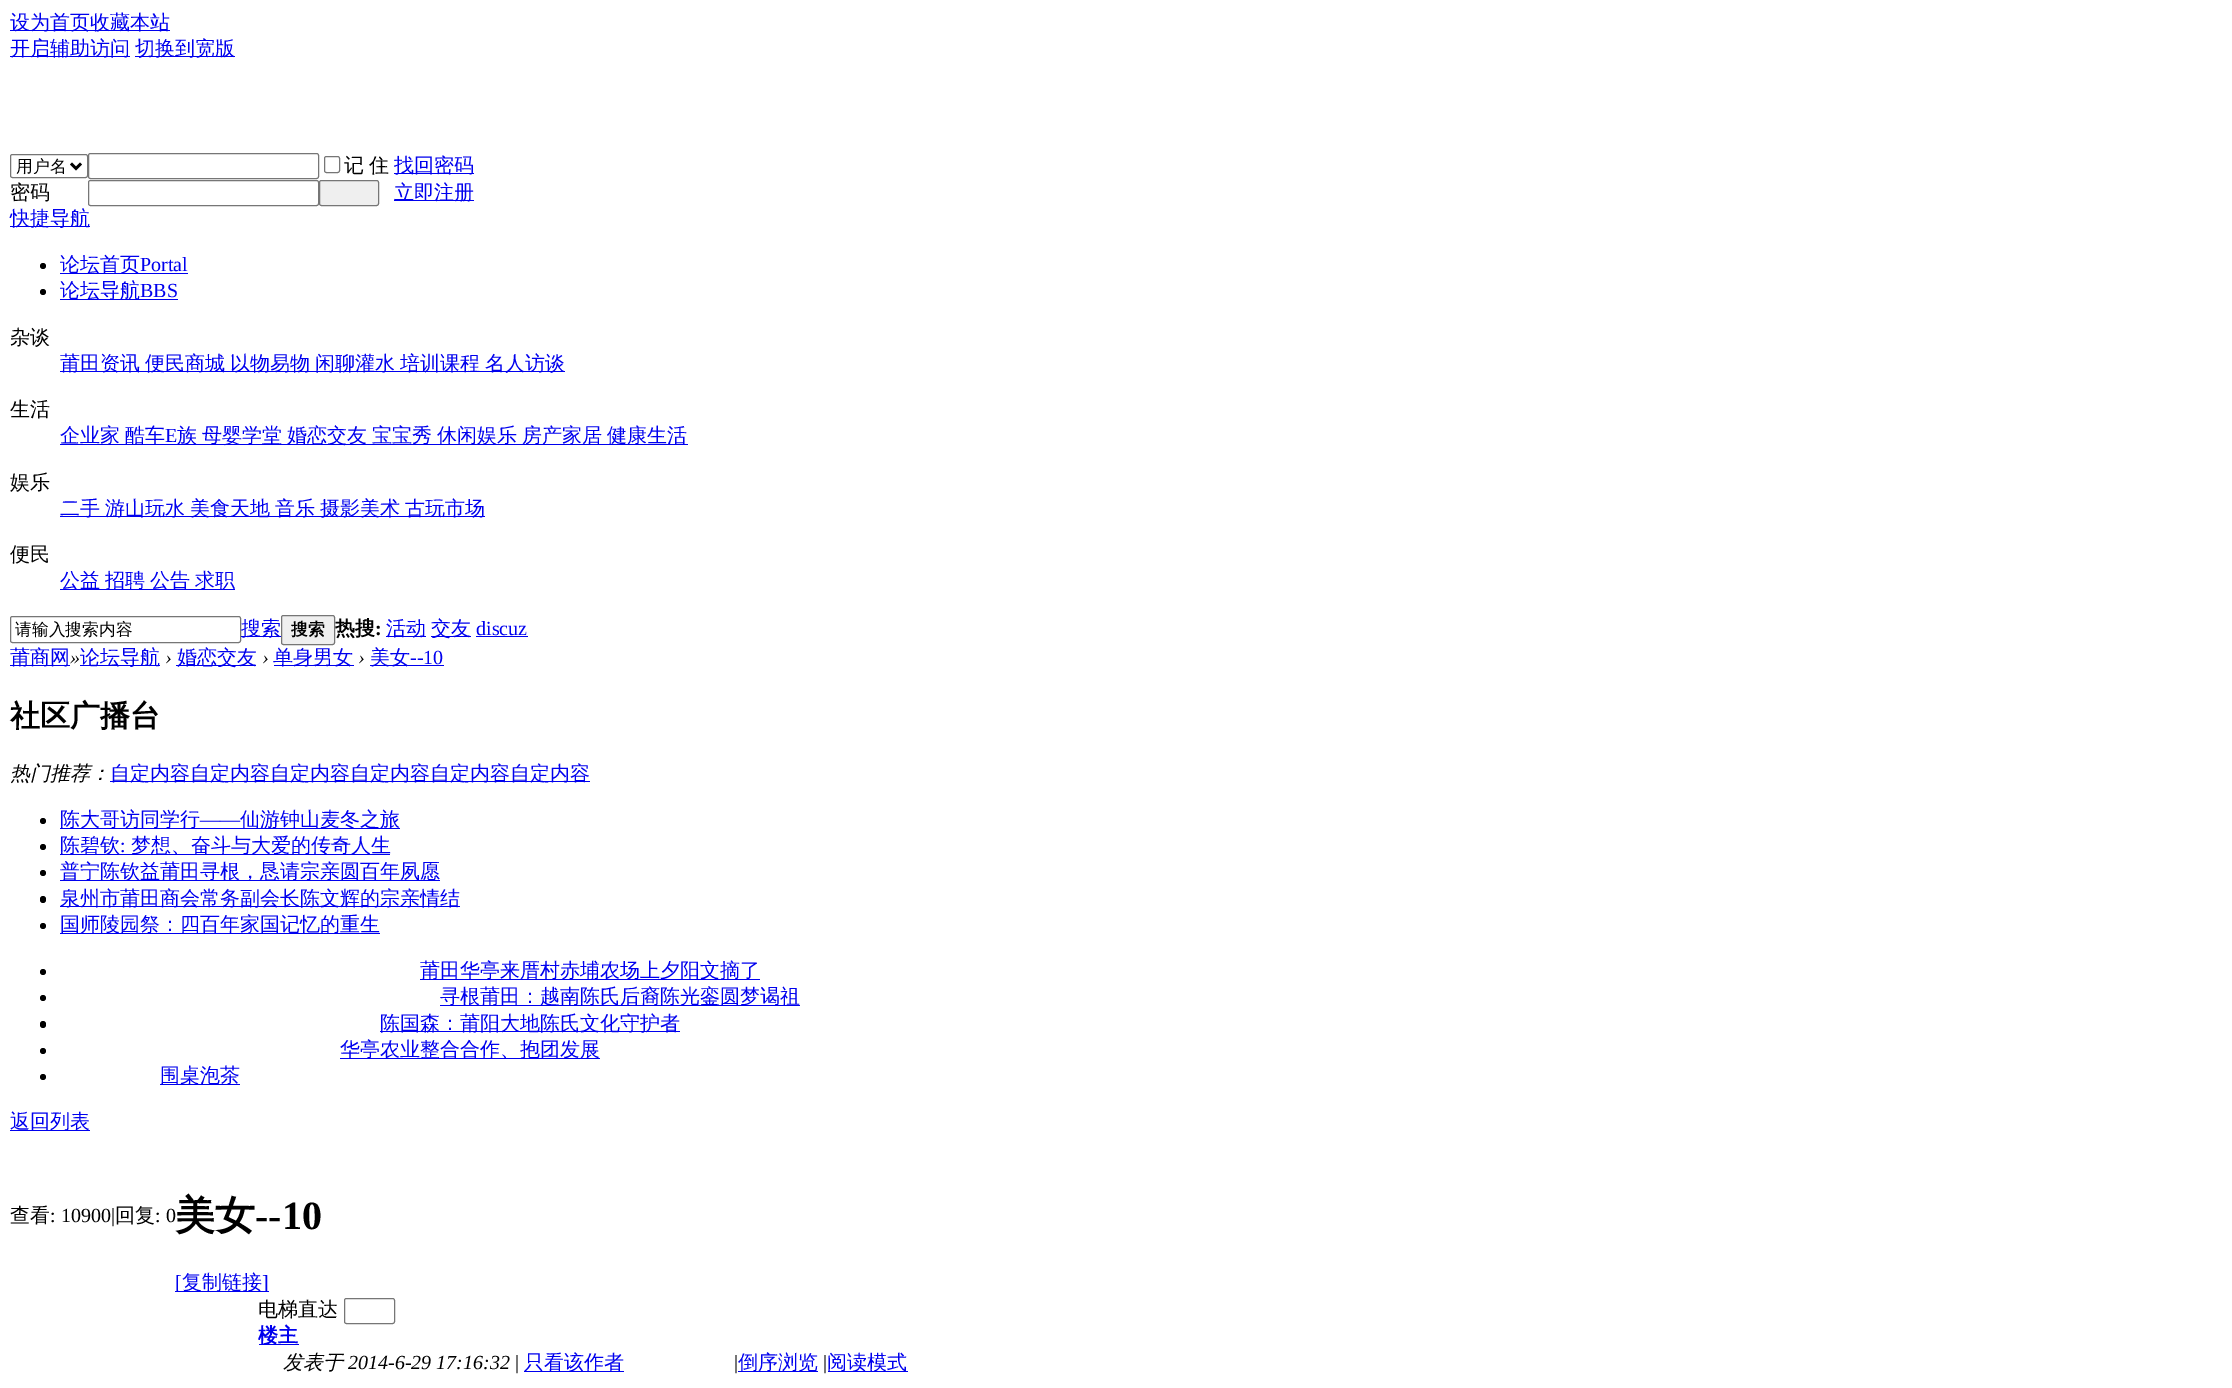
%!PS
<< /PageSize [2232 1388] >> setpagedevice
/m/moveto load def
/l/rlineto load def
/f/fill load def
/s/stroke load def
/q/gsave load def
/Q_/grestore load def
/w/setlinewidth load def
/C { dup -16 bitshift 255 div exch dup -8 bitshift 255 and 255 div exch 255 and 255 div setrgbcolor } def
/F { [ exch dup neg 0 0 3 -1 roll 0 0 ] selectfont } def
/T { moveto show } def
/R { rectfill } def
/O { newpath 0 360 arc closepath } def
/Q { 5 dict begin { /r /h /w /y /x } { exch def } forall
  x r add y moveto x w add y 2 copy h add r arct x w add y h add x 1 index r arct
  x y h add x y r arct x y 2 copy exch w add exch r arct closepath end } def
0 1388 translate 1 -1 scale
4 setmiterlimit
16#FFFFFF C
0 0 2232 1388 R
16#0000EE C
10 30 160 1 R
/WenQuanYiZenHei-Medium 20 F
(设为首页收藏本站) 10 29 T
10 56 120 1 R
(开启辅助访问) 10 55 T
135 56 100 1 R
(切换到宽版) 135 55 T
16#767676 C
10.5 154.5 77 23 2 Q s
16#000000 C
2.5 w
71 163.5 m 5 5 l 5 -5 l s
/WenQuanYiZenHei-Medium 16.75 F
(用户名) 16 172 T
16#767676 C
1 w
88.5 153.5 230 25 2 Q s
324.5 156.5 15 16 2 Q s
/WenQuanYiZenHei-Medium 20 F
16#000000 C
344 172 m -1 0 32 (记 住) widthshow
16#0000EE C
394 173 80 1 R
(找回密码) 394 172 T
16#000000 C
(密码) 10 199 T
16#767676 C
88.5 180.5 230 25 2 Q s
16#EFEFEF C
319.5 180.5 59 25 2 Q q f Q_
16#767676 C
s
16#0000EE C
394 200 80 1 R
(立即注册) 394 199 T
10 226 80 1 R
(快捷导航) 10 225 T
16#000000 C
43 266 3 O f
16#0000EE C
60 273 128 1 R
(论坛首页) 60 271 T
/LiberationSerif-Regular 20 F
(Portal) 140 271 T
16#000000 C
43 292 3 O f
16#0000EE C
60 299 118 1 R
/WenQuanYiZenHei-Medium 20 F
(论坛导航) 60 297 T
/LiberationSerif-Regular 20 F
(BBS) 140 297 T
/WenQuanYiZenHei-Medium 20 F
16#000000 C
(杂谈) 10 344 T
16#0000EE C
60 371 505 1 R
(莆田资讯) 60 370 T
(便民商城) 145 370 T
(以物易物) 230 370 T
(闲聊灌水) 315 370 T
(培训课程) 400 370 T
(名人访谈) 485 370 T
16#000000 C
(生活) 10 416 T
16#0000EE C
60 444 628 1 R
(企业家) 60 442 T
(酷车) 125 442 T
/LiberationSerif-Regular 20 F
(E) 165 442 T
/WenQuanYiZenHei-Medium 20 F
(族) 177 442 T
(母婴学堂) 202 442 T
(婚恋交友) 287 442 T
(宝宝秀) 372 442 T
(休闲娱乐) 437 442 T
(房产家居) 522 442 T
(健康生活) 607 442 T
16#000000 C
(娱乐) 10 489 T
16#0000EE C
60 516 425 1 R
(二手) 60 515 T
(游山玩水) 105 515 T
(美食天地) 190 515 T
(音乐) 275 515 T
(摄影美术) 320 515 T
(古玩市场) 405 515 T
16#000000 C
(便民) 10 561 T
16#0000EE C
60 589 175 1 R
(公益) 60 587 T
(招聘) 105 587 T
(公告) 150 587 T
(求职) 195 587 T
16#767676 C
10.5 616.5 230 26 2 Q s
/WenQuanYiZenHei-Medium 16.75 F
16#000000 C
(请输入搜索内容) 15 635 T
16#0000EE C
241 636 40 1 R
/WenQuanYiZenHei-Medium 20 F
(搜索) 241 635 T
16#EFEFEF C
281.5 615.5 53 29 2 Q q f Q_
16#767676 C
s
/WenQuanYiZenHei-Bold 16.75 F
16#000000 C
(搜索) 291 635 T
/WenQuanYiZenHei-Bold 20 F
(热搜) 335 635 T
/LiberationSerif-Bold 20 F
(:) 375 635 T
16#0000EE C
386 636 40 1 R
/WenQuanYiZenHei-Medium 20 F
(活动) 386 635 T
431 636 40 1 R
(交友) 431 635 T
/LiberationSerif-Regular 20 F
(discuz) 476 635 T
476 636 52 1 R
10 665 60 1 R
/WenQuanYiZenHei-Medium 20 F
(莆商网) 10 664 T
/LiberationSerif-Italic 20 F
16#000000 C
(») 70 664 T
16#0000EE C
80 665 80 1 R
/WenQuanYiZenHei-Medium 20 F
(论坛导航) 80 664 T
/LiberationSerif-Italic 20 F
16#000000 C
(›) 165 664 T
16#0000EE C
176 665 80 1 R
/WenQuanYiZenHei-Medium 20 F
(婚恋交友) 177 664 T
/LiberationSerif-Italic 20 F
16#000000 C
(›) 262 664 T
16#0000EE C
274 665 80 1 R
/WenQuanYiZenHei-Medium 20 F
(单身男女) 273 664 T
/LiberationSerif-Italic 20 F
16#000000 C
(›) 358 664 T
16#0000EE C
370 665 74 1 R
/WenQuanYiZenHei-Medium 20 F
(美女) 370 664 T
/LiberationSerif-Regular 20 F
(--10) 410 664 T
/WenQuanYiZenHei-Bold 30 F
16#000000 C
(社区广播台) 10 726 T
/WenQuanYiZenHei-MediumItalic 20 F
(热门推荐：) 10 780 T
16#0000EE C
110 781 480 1 R
/WenQuanYiZenHei-Medium 20 F
(自定内容自定内容自定内容自定内容自定内容自定内容) 110 780 T
16#000000 C
43 821 3 O f
16#0000EE C
60 828 340 1 R
(陈大哥访同学行) 60 826 T
/LiberationSerif-Regular 20 F
(——) 200 826 T
/WenQuanYiZenHei-Medium 20 F
(仙游钟山麦冬之旅) 240 826 T
16#000000 C
43 847 3 O f
16#0000EE C
60 854 330 1 R
(陈碧钦) 60 852 T
/LiberationSerif-Regular 20 F
(:) 120 852 T
/WenQuanYiZenHei-Medium 20 F
(梦想、奋斗与大爱的传奇人生) 131 852 T
16#000000 C
43 873 3 O f
16#0000EE C
60 880 380 1 R
(普宁陈钦益莆田寻根，恳请宗亲圆百年夙愿) 60 878 T
16#000000 C
40 896 6 7 3 Q f
16#0000EE C
60 906 400 1 R
(泉州市莆田商会常务副会长陈文辉的宗亲情结) 60 905 T
16#000000 C
43 926 3 O f
16#0000EE C
60 933 320 1 R
(国师陵园祭：四百年家国记忆的重生) 60 931 T
16#000000 C
43 972 3 O f
16#0000EE C
420 979 340 1 R
(莆田华亭来厝村赤埔农场上夕阳文摘了) 420 977 T
16#000000 C
43 998 3 O f
16#0000EE C
440 1005 360 1 R
(寻根莆田：越南陈氏后裔陈光銮圆梦谒祖) 440 1003 T
16#000000 C
40 1021 6 7 3 Q f
16#0000EE C
380 1031 300 1 R
(陈国森：莆阳大地陈氏文化守护者) 380 1030 T
16#000000 C
43 1051 3 O f
16#0000EE C
340 1058 260 1 R
(华亭农业整合合作、抱团发展) 340 1056 T
16#000000 C
43 1077 3 O f
16#0000EE C
160 1084 80 1 R
(围桌泡茶) 160 1082 T
10 1130 80 1 R
(返回列表) 10 1128 T
16#000000 C
(查看) 10 1222 T
/LiberationSerif-Regular 20 F
(: 10900|) 50 1222 T
/WenQuanYiZenHei-Medium 20 F
(回复) 115 1222 T
/LiberationSerif-Regular 20 F
(: 0) 155 1222 T
/WenQuanYiZenHei-Bold 40 F
(美女) 175 1229 T
/LiberationSerif-Bold 40 F
(--10) 255 1229 T
16#0000EE C
175 1291 94 1 R
/LiberationSerif-Regular 20 F
([) 175 1289 T
/WenQuanYiZenHei-Medium 20 F
(复制链接) 182 1289 T
/LiberationSerif-Regular 20 F
(]) 262 1289 T
/WenQuanYiZenHei-Medium 20 F
16#000000 C
(电梯直达) 258 1316 T
16#767676 C
344.5 1298.5 50 25 2 Q s
16#0000EE C
259 1344 40 1 R
/WenQuanYiZenHei-Bold 20 F
(楼主) 258 1342 T
/WenQuanYiZenHei-MediumItalic 20 F
16#000000 C
(发表于) 283 1369 T
/LiberationSerif-Italic 20 F
(2014-6-29 17:16:32) 348 1369 T
/LiberationSerif-Regular 20 F
(|) 515 1369 T
16#0000EE C
524 1371 100 1 R
/WenQuanYiZenHei-Medium 20 F
(只看该作者) 524 1369 T
/LiberationSerif-Regular 20 F
16#000000 C
(|) 734 1369 T
16#0000EE C
738 1371 80 1 R
/WenQuanYiZenHei-Medium 20 F
(倒序浏览) 738 1369 T
/LiberationSerif-Regular 20 F
16#000000 C
(|) 823 1369 T
16#0000EE C
828 1371 80 1 R
/WenQuanYiZenHei-Medium 20 F
(阅读模式) 827 1369 T
showpage
